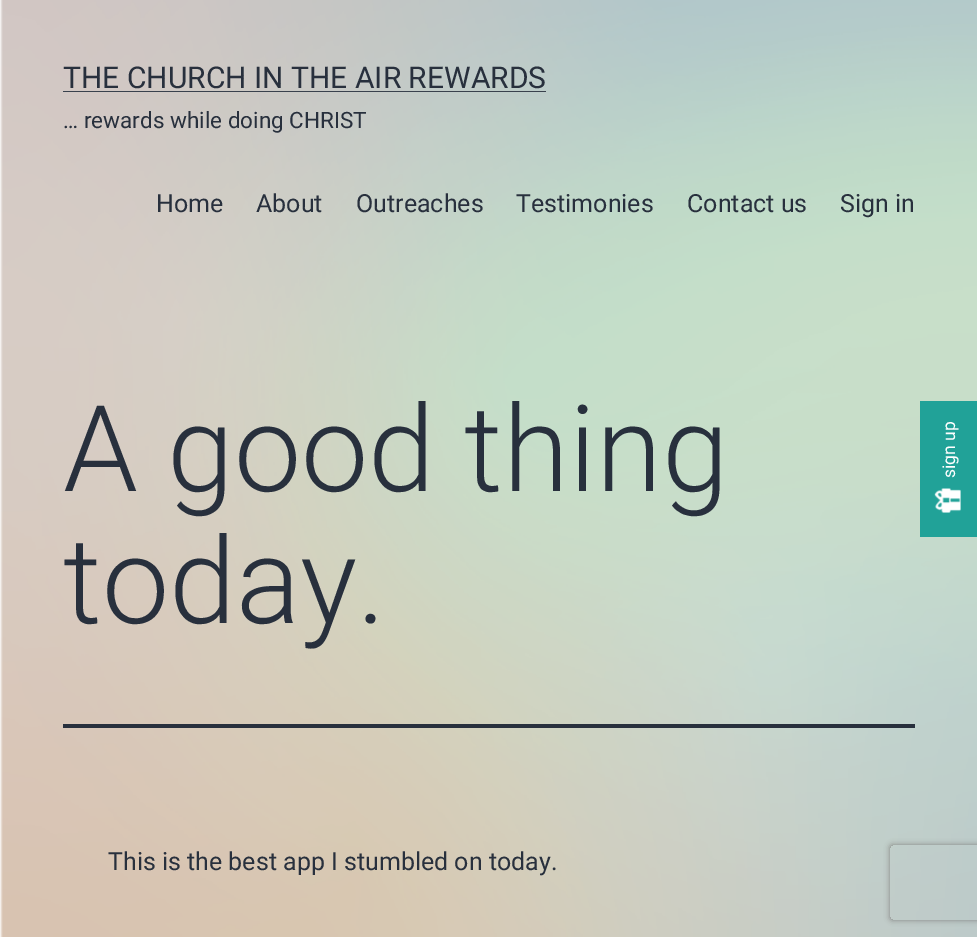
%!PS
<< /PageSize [977 937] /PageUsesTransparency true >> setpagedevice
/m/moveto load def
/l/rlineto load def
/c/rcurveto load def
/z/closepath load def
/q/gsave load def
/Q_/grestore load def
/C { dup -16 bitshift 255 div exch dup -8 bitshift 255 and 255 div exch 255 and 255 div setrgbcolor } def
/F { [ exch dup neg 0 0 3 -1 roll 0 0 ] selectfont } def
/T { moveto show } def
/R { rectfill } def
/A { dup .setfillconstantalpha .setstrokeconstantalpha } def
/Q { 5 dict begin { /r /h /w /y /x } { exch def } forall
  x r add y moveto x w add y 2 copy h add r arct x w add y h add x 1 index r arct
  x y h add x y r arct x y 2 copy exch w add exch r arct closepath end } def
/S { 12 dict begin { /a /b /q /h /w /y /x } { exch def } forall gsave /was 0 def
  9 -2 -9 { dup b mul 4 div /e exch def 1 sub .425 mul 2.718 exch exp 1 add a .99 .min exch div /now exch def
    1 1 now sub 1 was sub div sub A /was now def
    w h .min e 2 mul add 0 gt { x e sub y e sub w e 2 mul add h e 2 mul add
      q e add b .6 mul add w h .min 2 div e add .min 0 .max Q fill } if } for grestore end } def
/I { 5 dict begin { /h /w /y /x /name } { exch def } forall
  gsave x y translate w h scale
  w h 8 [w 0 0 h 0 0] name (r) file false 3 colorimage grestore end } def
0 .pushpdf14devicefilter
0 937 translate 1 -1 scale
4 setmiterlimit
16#FFFFFF C
0 0 977 937 R
(1.rgb) 0 0 977 937 I
/Roboto-Regular 30 F
16#28303D C
(THE CHURCH IN THE AIR REWARDS) 63 88 T
16#39414D C
63 91 483 1 R
/Roboto-Regular 22.5 F
16#28303D C
(… rewards while doing CHRIST) 63 128 T
/Roboto-Regular 25 F
(Home) 156 212 T
(About) 256 212 T
(Outreaches) 356 212 T
(Testimonies) 516 212 T
(Contact us) 687 212 T
(Sign in) 840 212 T
63 724 852 4 R
/Roboto-Light 120 F
(A good thing) 63 491 T
(today.) 63 623 T
/Roboto-Regular 25 F
(This is the best app I stumbled on today.) 108 870 T
16#21A298 C
920 401 57 136 R
/Roboto-Regular 17.5 F
16#FFFFFF C
q 955 478 translate -90 rotate 0 0 m (sign up) show Q_
(2.rgb) 934 488 27 25 I
q
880 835 m 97 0 l 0 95 l -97 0 l z 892.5 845 m 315 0 l 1.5 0 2.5 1 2.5 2.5 c 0 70 l 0 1.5 -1 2.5 -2.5 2.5 c -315 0 l -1.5 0 -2.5 -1 -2.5 -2.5 c 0 -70 l 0 -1.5 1 -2.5 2.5 -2.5 c z eoclip newpath
16#808080 C
890 845 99 75 2.5 3 1 S
Q_
.poppdf14devicefilter showpage
